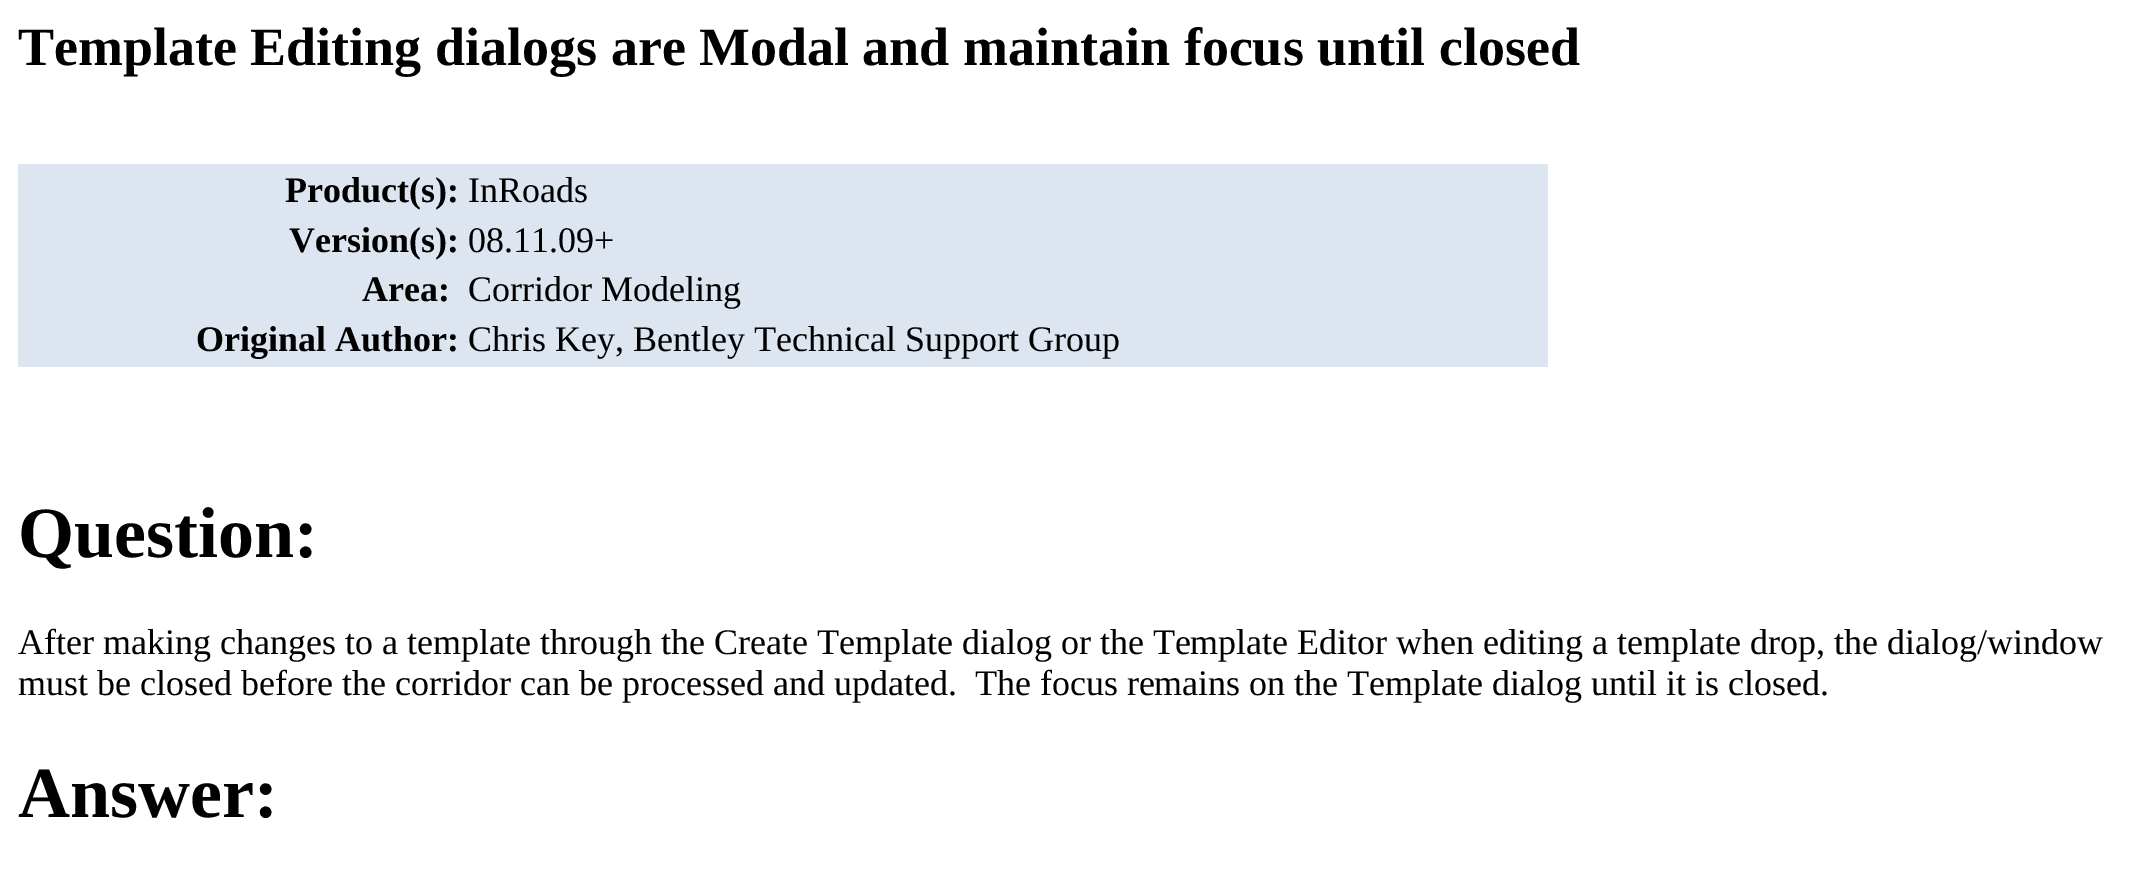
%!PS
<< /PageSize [2140 885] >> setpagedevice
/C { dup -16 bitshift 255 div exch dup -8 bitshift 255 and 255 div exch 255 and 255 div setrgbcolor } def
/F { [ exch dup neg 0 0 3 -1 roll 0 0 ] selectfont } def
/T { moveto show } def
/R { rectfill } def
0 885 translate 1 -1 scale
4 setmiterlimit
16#FFFFFF C
0 0 2140 885 R
/LiberationSerif-Bold 54 F
16#000000 C
(Template Editing dialogs are Modal and maintain focus until closed) 18 65 T
16#DCE5F0 C
18 164 1530 203 R
/LiberationSerif-Bold 36 F
16#000000 C
(Product\(s\):) 285 202 T
/LiberationSerif-Regular 36 F
(InRoads) 468 202 T
/LiberationSerif-Bold 36 F
(Version\(s\):) 289 252 T
/LiberationSerif-Regular 36 F
(08.11.09+) 468 252 T
/LiberationSerif-Bold 36 F
(Area:) 362 301 T
/LiberationSerif-Regular 36 F
(Corridor Modeling) 468 301 T
/LiberationSerif-Bold 36 F
(Original Author:) 196 351 T
/LiberationSerif-Regular 36 F
(Chris Key, Bentley Technical Support Group) 468 351 T
/LiberationSerif-Bold 72 F
(Question:) 18 557 T
/LiberationSerif-Regular 36 F
(After making changes to a template through the Create Template dialog or the Template Editor when editing a template drop, the dialog/window) 18 654 T
(must be closed before the corridor can be processed and updated.  The focus remains on the Template dialog until it is closed.) 18 695 T
/LiberationSerif-Bold 72 F
(Answer:) 18 817 T
showpage
